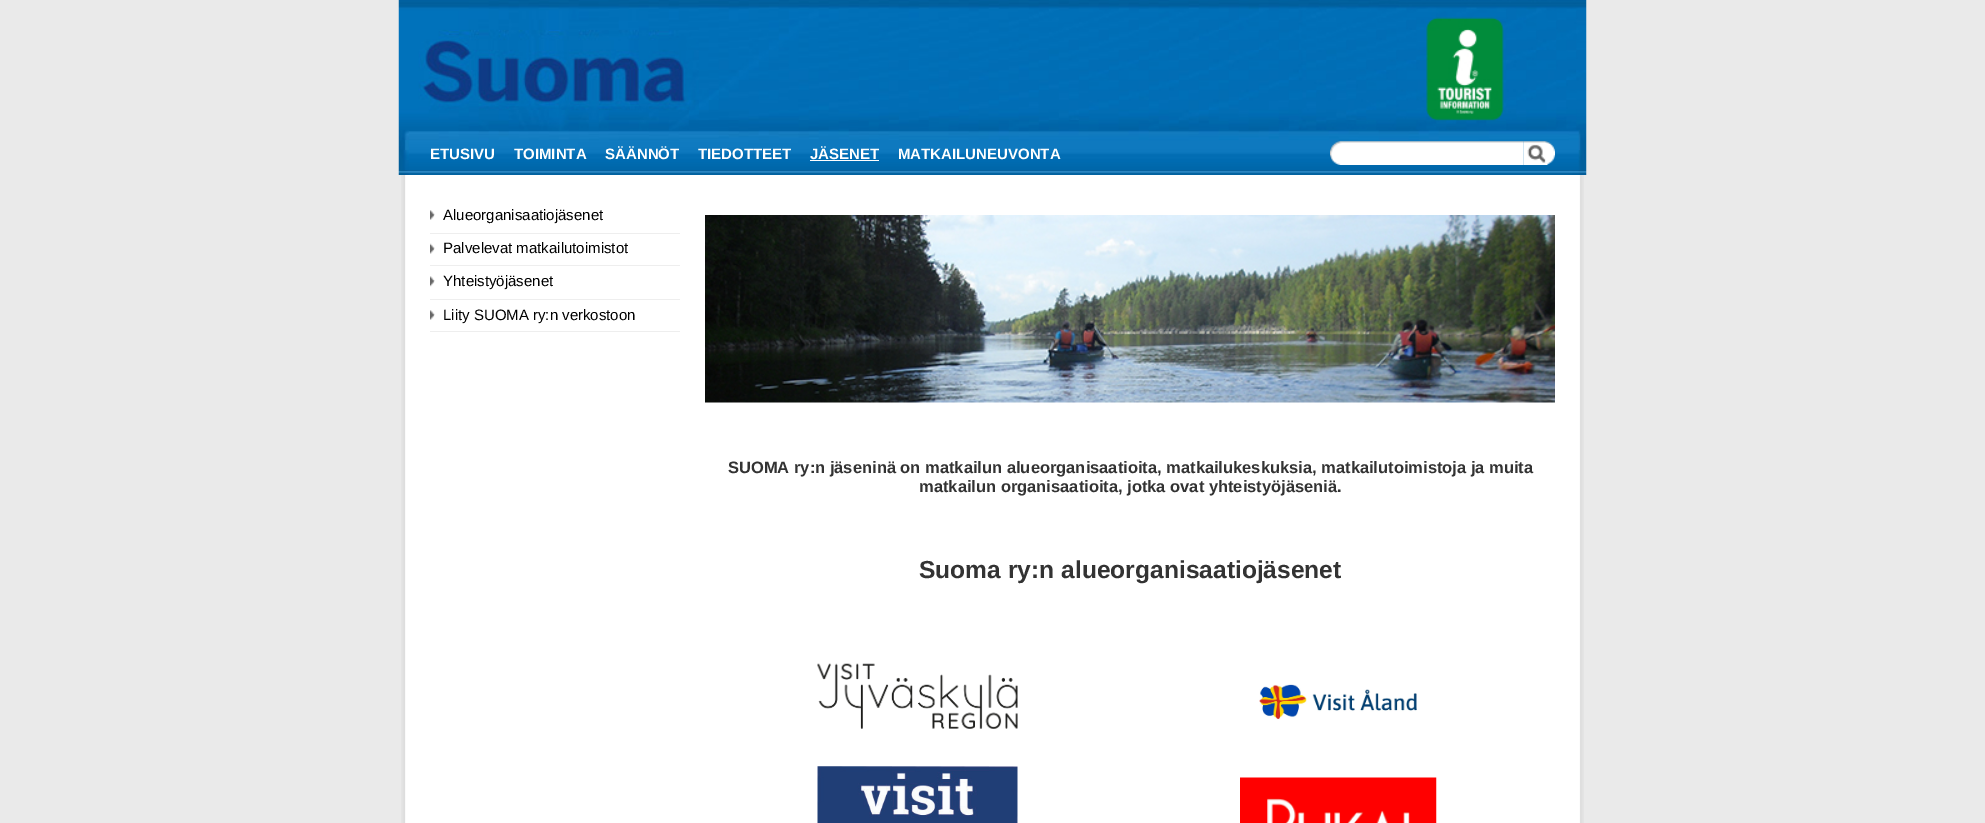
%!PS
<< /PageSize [1985 823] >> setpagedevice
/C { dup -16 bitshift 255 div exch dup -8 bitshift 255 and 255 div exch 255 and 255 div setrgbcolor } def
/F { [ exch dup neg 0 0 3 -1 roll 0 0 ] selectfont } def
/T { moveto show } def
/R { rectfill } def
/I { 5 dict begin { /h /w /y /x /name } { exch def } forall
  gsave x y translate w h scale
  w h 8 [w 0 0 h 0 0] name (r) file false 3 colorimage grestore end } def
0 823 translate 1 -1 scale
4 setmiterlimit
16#EAEAEA C
0 0 1985 823 R
(1.rgb) 398 0 1189 175 I
/LiberationSans-Bold 15 F
16#FFFFFF C
(ETUSIVU) 430 159 T
(TOIMINTA) 514 159 T
(SÄÄNNÖT) 605 159 T
(TIEDOTTEET) 698 159 T
(JÄSENET) 810 159 T
810 160 69 1 R
(MATKAILUNEUVONTA) 898 159 T
(2.rgb) 1330 141 194 24 I
(3.rgb) 1523 141 32 24 I
(4.rgb) 401 175 1183 648 I
16#EEEEEE C
430 233 250 1 R
(5.rgb) 430 210 5 10 I
/LiberationSans-Regular 15 F
16#000000 C
(Alueorganisaatiojäsenet) 443 220 T
16#EEEEEE C
430 265 250 1 R
(6.rgb) 430 243 5 11 I
16#000000 C
(Palvelevat matkailutoimistot) 443 253 T
16#EEEEEE C
430 299 250 1 R
(7.rgb) 430 276 5 11 I
16#000000 C
(Yhteistyöjäsenet) 443 286 T
16#EEEEEE C
430 331 250 1 R
(5.rgb) 430 310 5 10 I
16#000000 C
(Liity SUOMA ry:n verkostoon) 443 320 T
(8.rgb) 705 215 850 188 I
/LiberationSans-Bold 16.5 F
16#333333 C
(SUOMA ry:n jäseninä on matkailun alueorganisaatioita, matkailukeskuksia, matkailutoimistoja ja muita) 728 473 T
(matkailun organisaatioita, jotka ovat yhteistyöjäseniä.) 919 492 T
/LiberationSans-Bold 24.6 F
(Suoma ry:n alueorganisaatiojäsenet) 919 578 T
(9.rgb) 817 663 201 66 I
(10.rgb) 817 766 201 57 I
(11.rgb) 1259 684 158 36 I
(12.rgb) 1240 777 197 46 I
showpage
